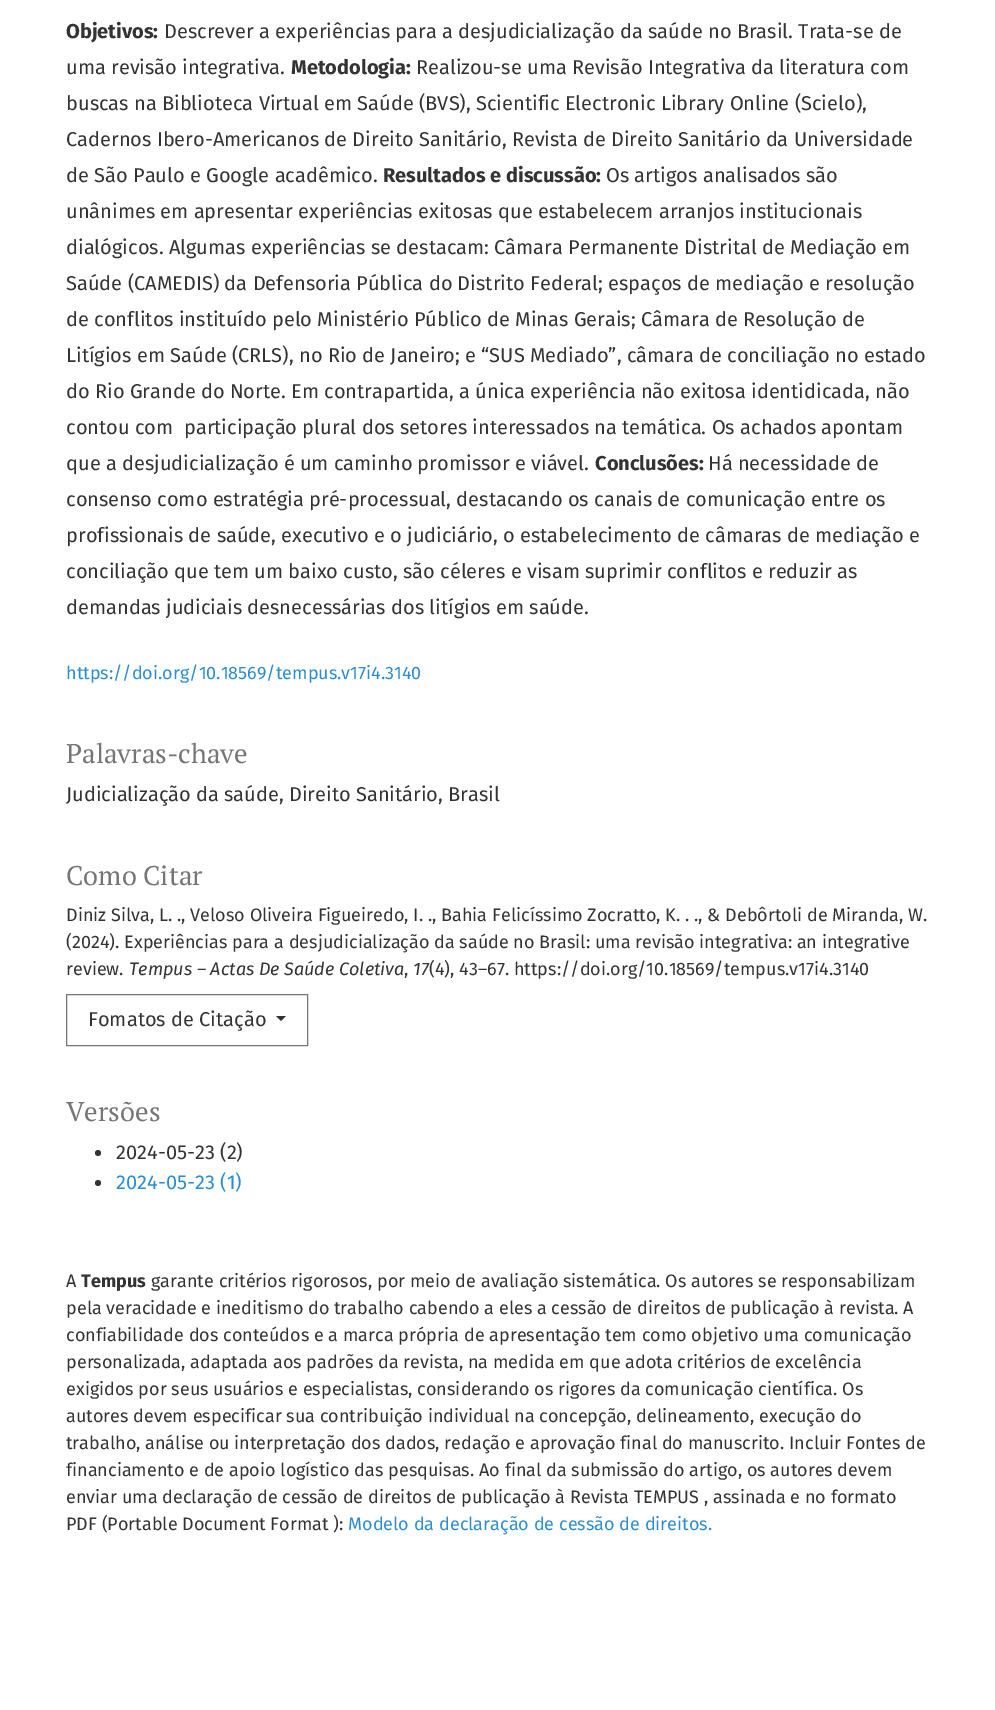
%!PS
<< /PageSize [995 1710] >> setpagedevice
/m/moveto load def
/l/rlineto load def
/z/closepath load def
/f/fill load def
/C { dup -16 bitshift 255 div exch dup -8 bitshift 255 and 255 div exch 255 and 255 div setrgbcolor } def
/F { [ exch dup neg 0 0 3 -1 roll 0 0 ] selectfont } def
/T { moveto show } def
/R { rectfill } def
/O { newpath 0 360 arc closepath } def
0 1710 translate 1 -1 scale
4 setmiterlimit
16#FFFFFF C
0 0 995 1710 R
/FiraSans-Bold 20 F
16#333333 C
(Objetivos:) 66 38 T
/FiraSans-Regular 20 F
(Descrever a experiências para a desjudicialização da saúde no Brasil. Trata-se de) 164 38 T
(uma revisão integrativa.) 66 74 T
/FiraSans-Bold 20 F
(Metodologia:) 291 74 T
/FiraSans-Regular 20 F
(Realizou-se uma Revisão Integrativa da literatura com) 416 74 T
(buscas na Biblioteca Virtual em Saúde \(BVS\), Scientific Electronic Library Online \(Scielo\),) 66 110 T
(Cadernos Ibero-Americanos de Direito Sanitário, Revista de Direito Sanitário da Universidade) 66 146 T
(de São Paulo e Google acadêmico.) 66 182 T
/FiraSans-Bold 20 F
(Resultados e discussão:) 383 182 T
/FiraSans-Regular 20 F
(Os artigos analisados são) 606 182 T
(unânimes em apresentar experiências exitosas que estabelecem arranjos institucionais) 66 218 T
(dialógicos. Algumas experiências se destacam: Câmara Permanente Distrital de Mediação em) 66 254 T
(Saúde \(CAMEDIS\) da Defensoria Pública do Distrito Federal; espaços de mediação e resolução) 66 290 T
(de conflitos instituído pelo Ministério Público de Minas Gerais; Câmara de Resolução de) 66 326 T
(Litígios em Saúde \(CRLS\), no Rio de Janeiro; e “SUS Mediado”, câmara de conciliação no estado) 66 362 T
(do Rio Grande do Norte. Em contrapartida, a única experiência não exitosa identidicada, não) 66 398 T
(contou com  participação plural dos setores interessados na temática. Os achados apontam) 66 434 T
(que a desjudicialização é um caminho promissor e viável.) 66 470 T
/FiraSans-Bold 20 F
(Conclusões:) 595 470 T
/FiraSans-Regular 20 F
(Há necessidade de) 708 470 T
(consenso como estratégia pré-processual, destacando os canais de comunicação entre os) 66 506 T
(profissionais de saúde, executivo e o judiciário, o estabelecimento de câmaras de mediação e) 66 542 T
(conciliação que tem um baixo custo, são céleres e visam suprimir conflitos e reduzir as) 66 578 T
(demandas judiciais desnecessárias dos litígios em saúde.) 66 614 T
/FiraSans-Regular 18 F
16#2B8DD1 C
(https://doi.org/10.18569/tempus.v17i4.3140) 66 679 T
/PTSerif-Regular 27 F
16#757575 C
(Palavras-chave) 66 763 T
/FiraSans-Regular 20 F
16#333333 C
(Judicialização da saúde, Direito Sanitário, Brasil) 66 801 T
/PTSerif-Regular 27 F
16#757575 C
(Como Citar) 66 885 T
/FiraSans-Regular 18 F
16#333333 C
(Diniz Silva, L. ., Veloso Oliveira Figueiredo, I. ., Bahia Felicíssimo Zocratto, K. . ., & Debôrtoli de Miranda, W.) 66 921 T
(\(2024\). Experiências para a desjudicialização da saúde no Brasil: uma revisão integrativa: an integrative) 66 948 T
(review.) 66 975 T
/FiraSans-Italic 18 F
(Tempus – Actas De Saúde Coletiva) 129 975 T
/FiraSans-Regular 18 F
(,) 404 975 T
/FiraSans-Italic 18 F
(17) 413 975 T
/FiraSans-Regular 18 F
(\(4\), 43–67. https://doi.org/10.18569/tempus.v17i4.3140) 429 975 T
16#757575 C
66.5 994.5 241 51 rectstroke
/FiraSans-Regular 20 F
16#333333 C
(Fomatos de Citação) 88 1026 T
276 1016 m 10 0 l -5 5 l z f
/PTSerif-Regular 27 F
16#757575 C
(Versões) 66 1121 T
16#333333 C
98 1153 3 O f
/FiraSans-Regular 20 F
(2024-05-23 \(2\)) 116 1159 T
98 1183 3 O f
16#2B8DD1 C
(2024-05-23 \(1\)) 116 1189 T
/FiraSans-Regular 18 F
16#333333 C
(A) 66 1287 T
/FiraSans-Bold 18 F
(Tempus) 81 1287 T
/FiraSans-Regular 18 F
(garante critérios rigorosos, por meio de avaliação sistemática. Os autores se responsabilizam) 151 1287 T
(pela veracidade e ineditismo do trabalho cabendo a eles a cessão de direitos de publicação à revista. A) 66 1314 T
(confiabilidade dos conteúdos e a marca própria de apresentação tem como objetivo uma comunicação) 66 1341 T
(personalizada, adaptada aos padrões da revista, na medida em que adota critérios de excelência) 66 1368 T
(exigidos por seus usuários e especialistas, considerando os rigores da comunicação científica. Os) 66 1395 T
(autores devem especificar sua contribuição individual na concepção, delineamento, execução do) 66 1422 T
(trabalho, análise ou interpretação dos dados, redação e aprovação final do manuscrito. Incluir Fontes de) 66 1449 T
(financiamento e de apoio logístico das pesquisas. Ao final da submissão do artigo, os autores devem) 66 1476 T
(enviar uma declaração de cessão de direitos de publicação à Revista TEMPUS , assinada e no formato) 66 1503 T
(PDF \(Portable Document Format \):) 66 1530 T
16#2B8DD1 C
(Modelo da declaração de cessão de direitos.) 348 1530 T
showpage
